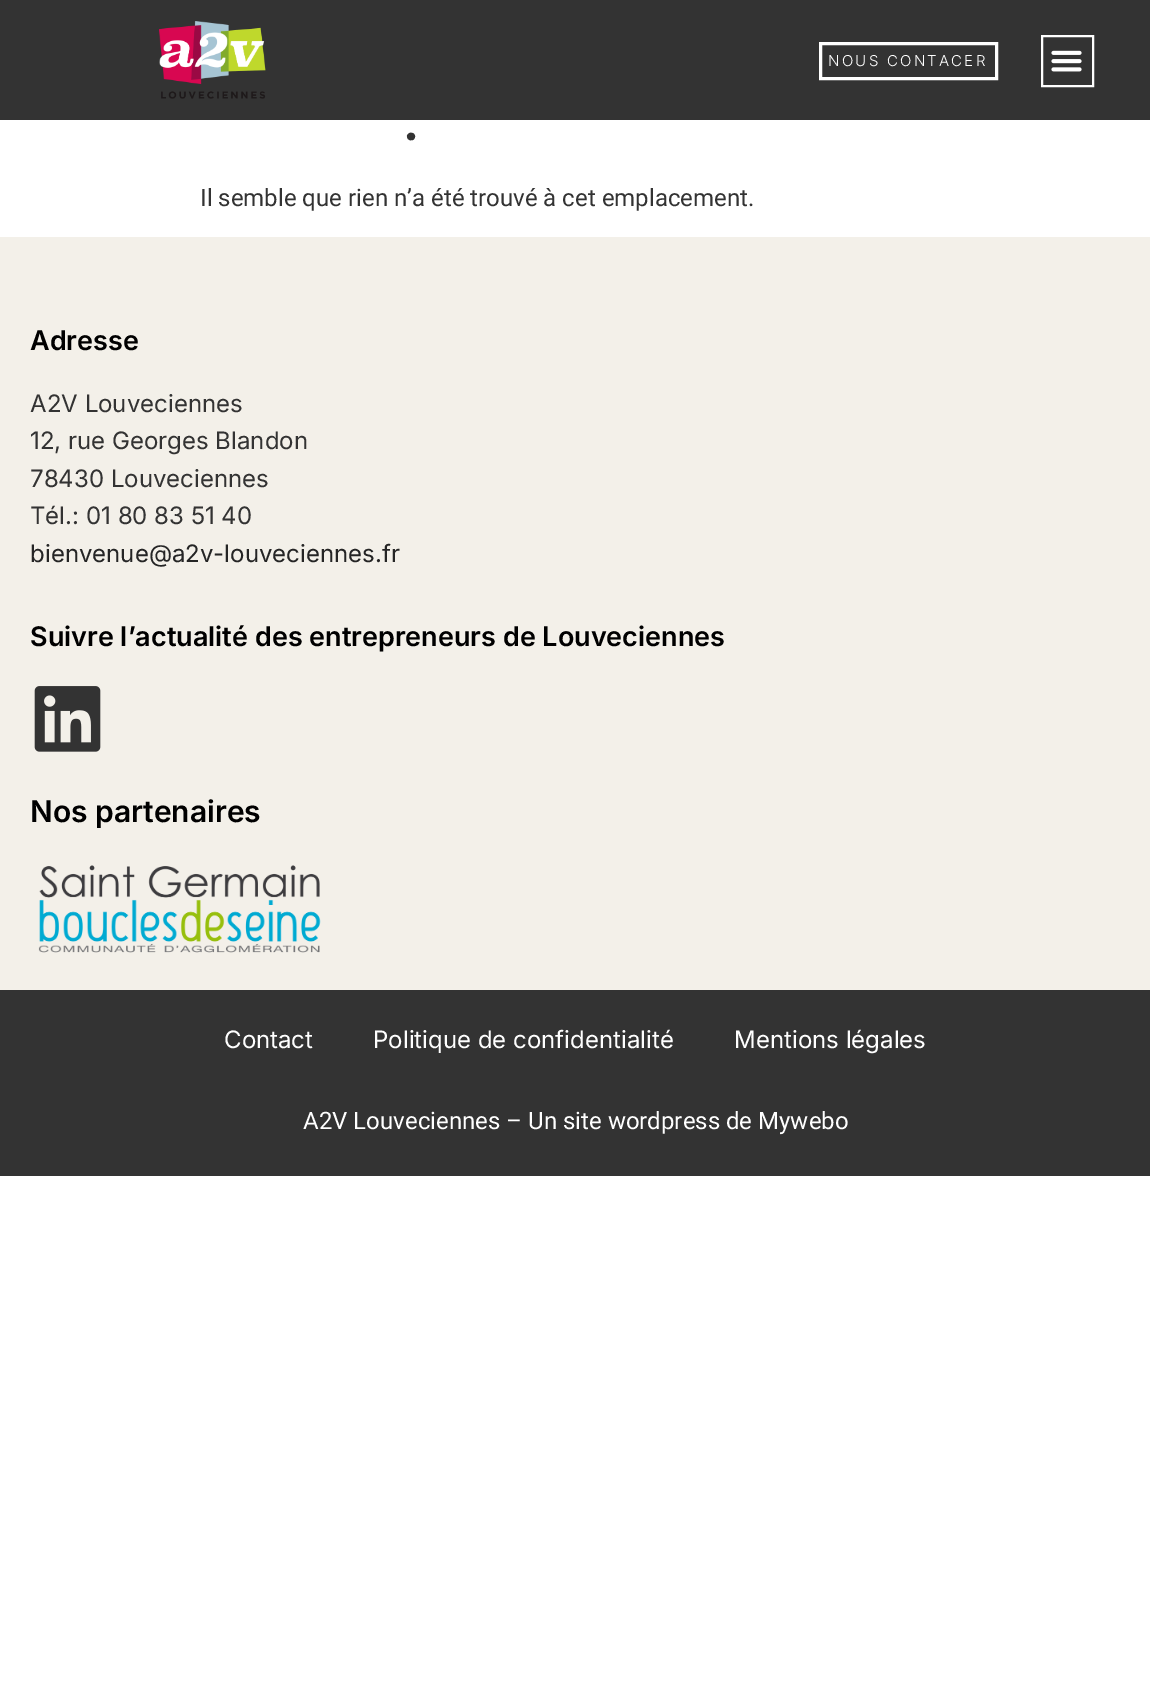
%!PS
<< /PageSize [1150 1682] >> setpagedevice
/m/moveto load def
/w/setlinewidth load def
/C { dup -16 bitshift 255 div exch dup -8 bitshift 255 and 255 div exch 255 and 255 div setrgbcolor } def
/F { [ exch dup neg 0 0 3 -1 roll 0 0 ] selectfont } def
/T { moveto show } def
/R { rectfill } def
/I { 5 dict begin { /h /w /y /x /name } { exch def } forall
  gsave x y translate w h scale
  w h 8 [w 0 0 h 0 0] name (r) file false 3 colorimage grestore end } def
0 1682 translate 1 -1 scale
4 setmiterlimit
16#FFFFFF C
0 0 1150 1682 R
16#333333 C
0 0 1150 120 R
(1.rgb) 159 21 107 78 I
16#FFFFFF C
3 w
820.5 43.5 176 35 rectstroke
/Inter-Light 15 F
828 66 m 2.25 0 (NOUS CONTACER) ashow
2 w
1042 36 51 50 rectstroke
(2.rgb) 1051 50 31 22 I
/Roboto-Medium 60 F
16#333333 C
(.) 403 140 T
/Roboto-Regular 24 F
(Il semble que rien n’a été trouvé à cet emplacement.) 200 206 T
16#F3F0E9 C
0 237 1150 753 R
/Inter-SemiBold 27 F
16#000000 C
(Adresse) 30 350 T
/Inter-Regular 24 F
16#333333 C
(A2V Louveciennes) 30 412 T
(12, rue Georges Blandon) 30 449 T
(78430 Louveciennes) 30 487 T
(Tél.: 01 80 83 51 40) 30 524 T
16#252525 C
(bienvenue@a2v-louveciennes.fr) 30 562 T
/Inter-SemiBold 27 F
16#000000 C
(Suivre l’actualité des entrepreneurs de Louveciennes) 30 646 T
(3.rgb) 34 686 67 66 I
/Inter-SemiBold 30 F
(Nos partenaires) 30 822 T
(4.rgb) 38 865 283 88 I
16#333333 C
0 990 1150 186 R
/Inter-Regular 24 F
16#FFFFFF C
(Contact) 224 1048 T
(Politique de confidentialité) 373 1048 T
(Mentions légales) 734 1048 T
/Roboto-Regular 24 F
(A2V Louveciennes – Un site wordpress de Mywebo) 303 1129 T
showpage
